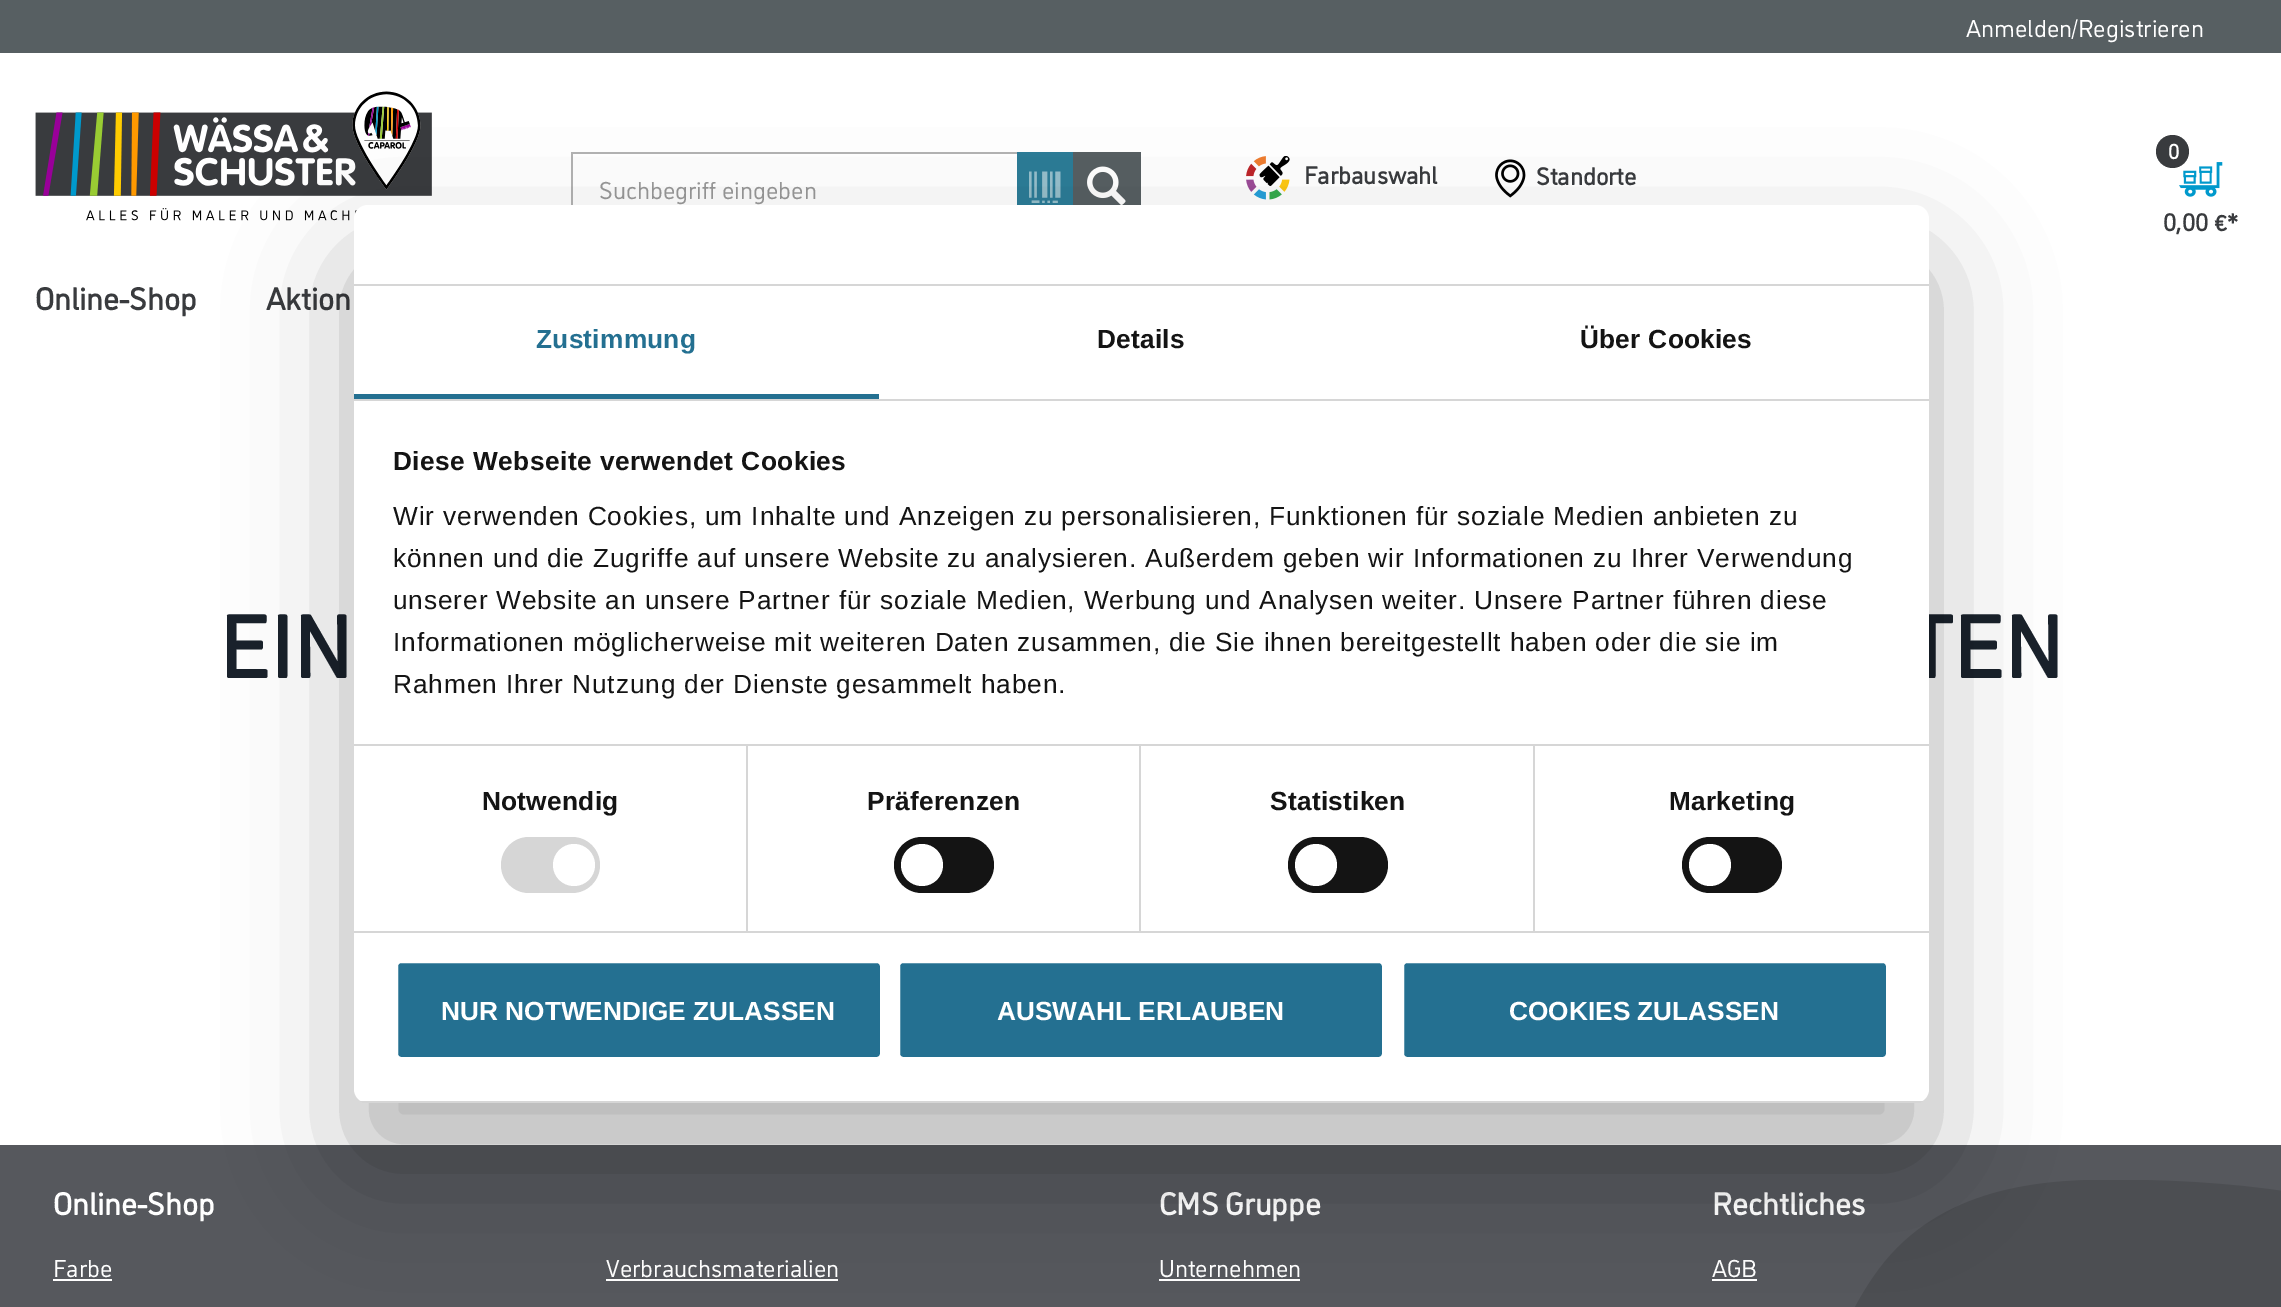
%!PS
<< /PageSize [2281 1307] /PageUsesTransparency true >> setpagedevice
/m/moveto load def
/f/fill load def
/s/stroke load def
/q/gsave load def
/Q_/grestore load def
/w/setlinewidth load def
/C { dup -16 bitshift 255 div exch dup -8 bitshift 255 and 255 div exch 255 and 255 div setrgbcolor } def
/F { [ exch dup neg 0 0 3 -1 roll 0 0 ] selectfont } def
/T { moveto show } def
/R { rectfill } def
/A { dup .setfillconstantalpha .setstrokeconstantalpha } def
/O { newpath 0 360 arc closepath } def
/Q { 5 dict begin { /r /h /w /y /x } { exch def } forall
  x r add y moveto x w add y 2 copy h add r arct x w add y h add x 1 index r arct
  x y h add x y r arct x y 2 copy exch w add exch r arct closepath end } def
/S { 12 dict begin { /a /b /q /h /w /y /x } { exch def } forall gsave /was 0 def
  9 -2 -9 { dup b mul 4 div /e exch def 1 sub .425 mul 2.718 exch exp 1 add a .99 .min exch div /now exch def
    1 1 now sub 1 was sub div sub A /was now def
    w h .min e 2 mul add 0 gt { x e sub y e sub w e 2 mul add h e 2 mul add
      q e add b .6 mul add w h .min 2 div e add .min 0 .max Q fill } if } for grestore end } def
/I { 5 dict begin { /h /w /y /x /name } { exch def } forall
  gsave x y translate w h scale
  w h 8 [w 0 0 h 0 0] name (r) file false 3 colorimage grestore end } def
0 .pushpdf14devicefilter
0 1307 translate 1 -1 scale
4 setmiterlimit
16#FFFFFF C
0 0 2281 1307 R
16#575F62 C
0 0 2281 53 R
/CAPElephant-Regular 24.5 F
16#FFFFFF C
(Anmelden/Registrieren) 1966 37 T
(1.rgb) 35 91 397 130 I
16#B2B2B2 C
571 152 446 2 R
571 152 2 53 R
16#999999 C
(Suchbegriff eingeben) 599 199 T
16#2C7C97 C
1017 152 56 53 R
(2.rgb) 1029 171 32 32 I
16#575F62 C
1073 152 68 53 R
(3.rgb) 1087 166 39 39 I
(4.rgb) 1246 156 44 44 I
/CAPElephant-Bold 24.5 F
16#393B3E C
(Farbauswahl) 1304 184 T
(5.rgb) 1495 159 31 39 I
(Standorte) 1536 185 T
(6.rgb) 2179 162 44 35 I
2172.5 151.5 16.5 O f
/CAPElephant-Bold 21 F
16#FFFFFF C
(0) 2168 159 T
/CAPElephant-Bold 24.5 F
16#393B3E C
(0,00 €*) 2163 231 T
/CAPElephant-Bold 31.5 F
(Online-Shop) 35 310 T
(Aktion) 266 310 T
/CAPElephant-Bold 88 F
16#19212B C
(EIN) 219 678 T
(TEN) 1906 678 T
16#56585D C
0 1145 2281 162 R
(7.rgb) 1855 1180 426 127 I
/CAPElephant-Bold 31.5 F
16#FFFFFF C
(Online-Shop) 53 1215 T
/CAPElephant-Regular 24.5 F
(Farbe) 53 1277 T
53 1279 59 2 R
(Verbrauchsmaterialien) 606 1277 T
606 1279 232 2 R
/CAPElephant-Bold 31.5 F
(CMS Gruppe) 1159 1215 T
/CAPElephant-Regular 24.5 F
(Unternehmen) 1159 1277 T
1159 1279 141 2 R
/CAPElephant-Bold 31.5 F
(Rechtliches) 1712 1215 T
/CAPElephant-Regular 24.5 F
(AGB) 1712 1277 T
1712 1279 45 2 R
16#000000 C
354 261 1575 898 14 59.5 .3 S
16#FFFFFF C
354 205 1575 898 14 Q f
16#D6D6D6 C
354 284 1575 2 R
354 399 1575 2 R
16#247091 C
354 394 525 5 R
/LiberationSans-Bold 26.25 F
536 348 m .25 0 (Zustimmung) ashow
16#141414 C
1097 348 m .25 0 (Details) ashow
1580 348 m .25 0 (Über Cookies) ashow
16#D6D6D6 C
354 744 1575 2 R
16#141414 C
393 470 m .45 0 (Diese Webseite verwendet Cookies) ashow
/LiberationSans-Regular 26.25 F
393 525 m .88 0 (Wir verwenden Cookies, um Inhalte und Anzeigen zu personalisieren, Funktionen für soziale Medien anbieten zu) ashow
393 567 m .88 0 (können und die Zugriffe auf unsere Website zu analysieren. Außerdem geben wir Informationen zu Ihrer Verwendung) ashow
393 609 m .88 0 (unserer Website an unsere Partner für soziale Medien, Werbung und Analysen weiter. Unsere Partner führen diese) ashow
393 651 m .88 0 (Informationen möglicherweise mit weiteren Daten zusammen, die Sie ihnen bereitgestellt haben oder die sie im) ashow
393 693 m .88 0 (Rahmen Ihrer Nutzung der Dienste gesammelt haben.) ashow
16#D6D6D6 C
354 931 1575 2 R
746 746 2 185 R
/LiberationSans-Bold 26.25 F
16#141414 C
482 810 m .25 0 (Notwendig) ashow
16#D6D6D6 C
501 837 99 56 28 Q f
16#FFFFFF C
574 865 21 O f
16#D6D6D6 C
1139 746 2 185 R
16#141414 C
867 810 m .25 0 (Präferenzen) ashow
894 837 100 56 28 Q f
16#FFFFFF C
922 865 21 O f
16#D6D6D6 C
1533 746 2 185 R
16#141414 C
1270 810 m .25 0 (Statistiken) ashow
1288 837 100 56 28 Q f
16#FFFFFF C
1316 865 21 O f
16#141414 C
1669 810 m .25 0 (Marketing) ashow
1682 837 100 56 28 Q f
16#FFFFFF C
1710 865 21 O f
q
354 205 1575 898 14 Q clip newpath
16#D6D6D6 C
354 1101 1575 2 R
Q_
16#247091 C
396 961 486 98 5 Q q f Q_
16#FFFFFF C
4 w
s
(NUR NOTWENDIGE ZULASSEN) 441 1020 T
16#247091 C
898 961 486 98 5 Q q f Q_
16#FFFFFF C
s
(AUSWAHL ERLAUBEN) 997 1020 T
16#247091 C
1402 961 486 98 5 Q q f Q_
16#FFFFFF C
s
(COOKIES ZULASSEN) 1509 1020 T
.poppdf14devicefilter showpage
